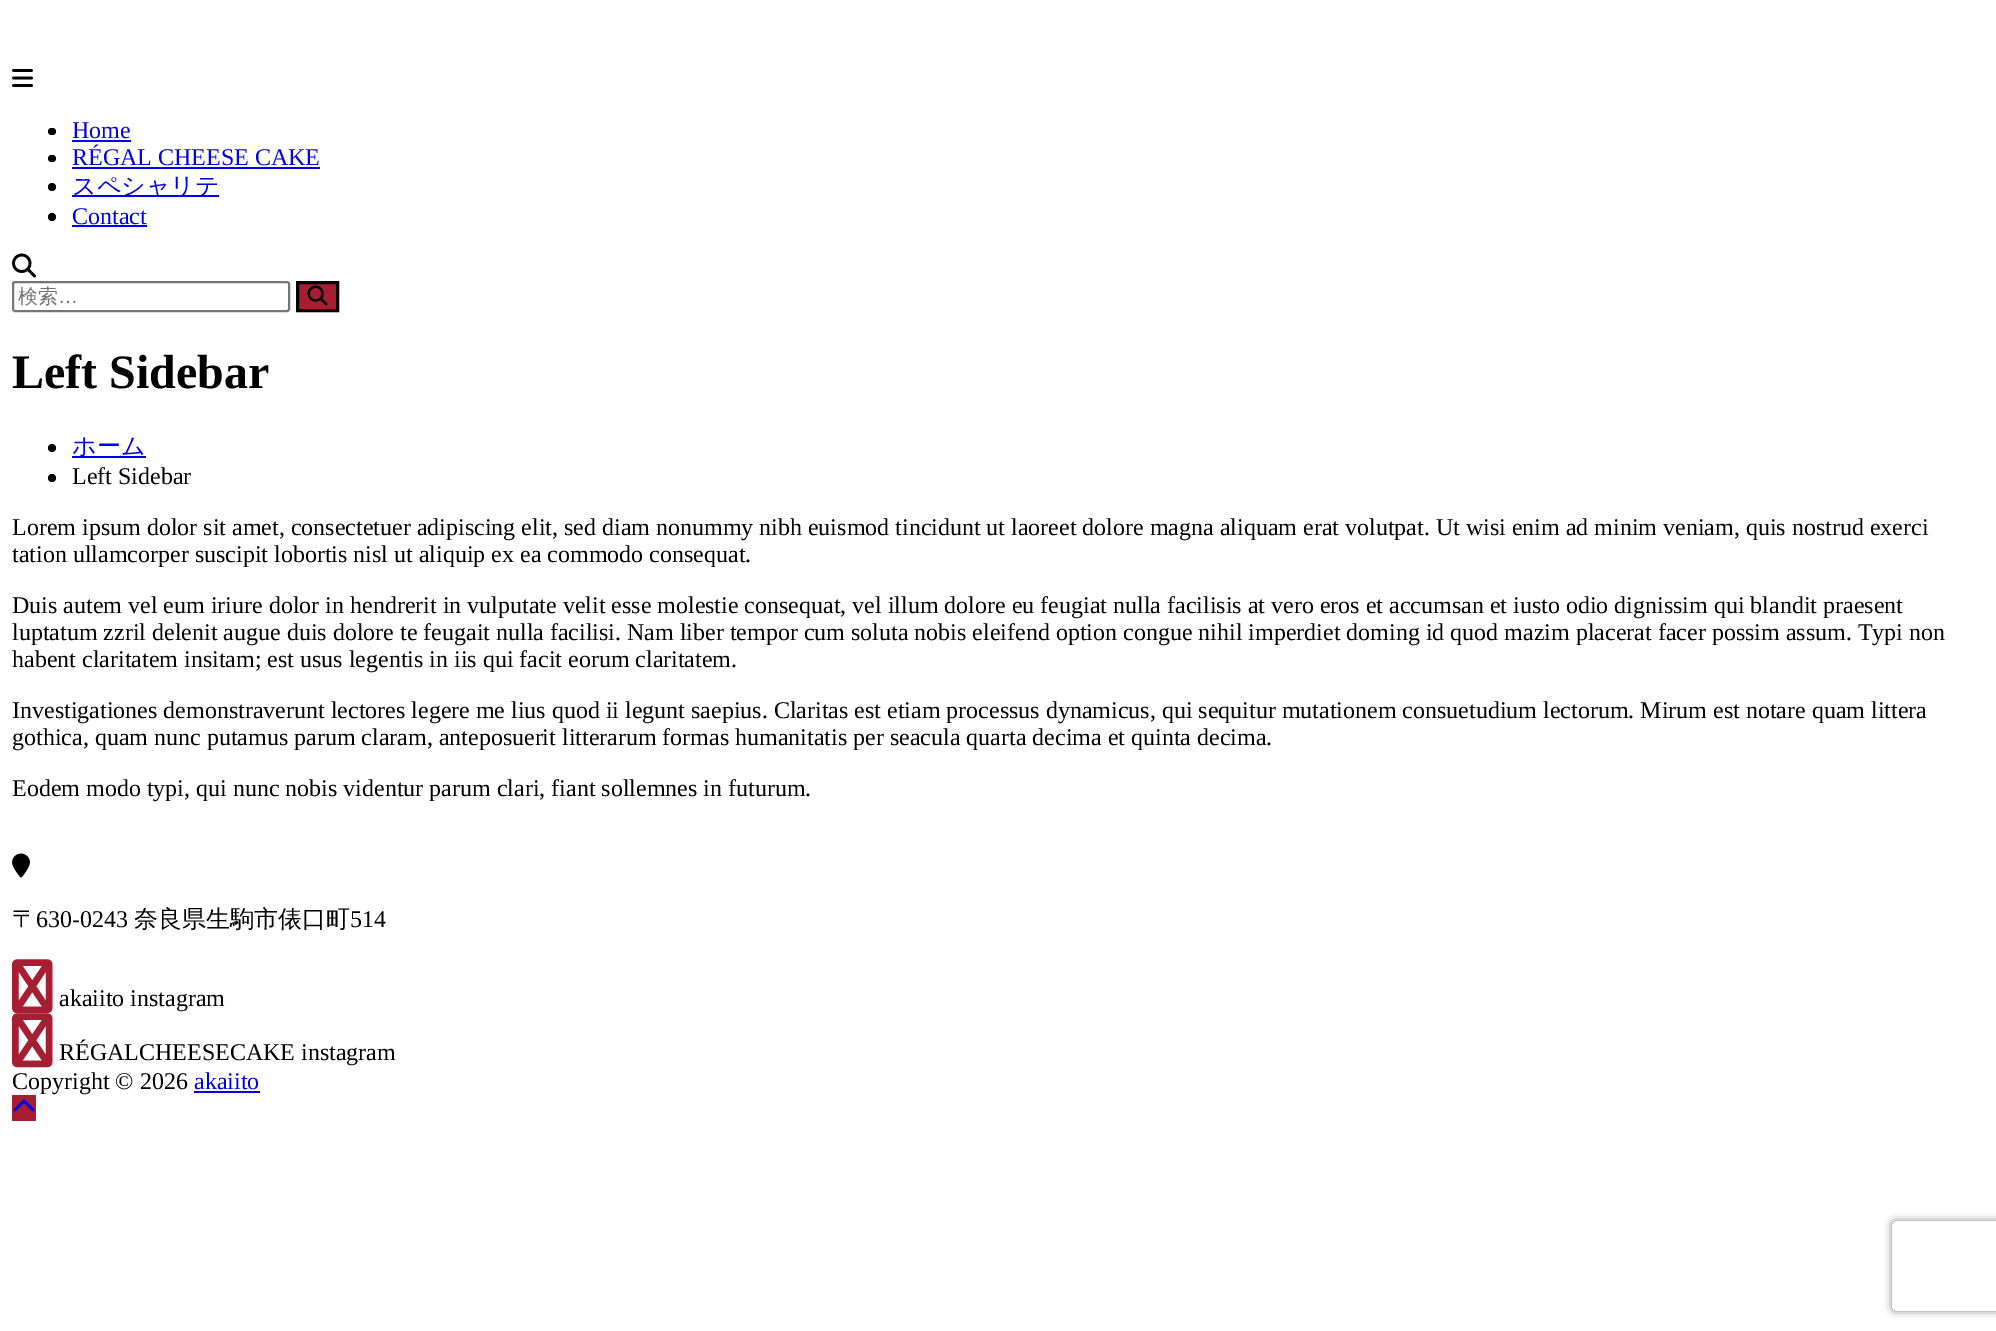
%!PS
<< /PageSize [1996 1331] /PageUsesTransparency true >> setpagedevice
/m/moveto load def
/l/rlineto load def
/c/rcurveto load def
/z/closepath load def
/f/fill load def
/s/stroke load def
/q/gsave load def
/Q_/grestore load def
/w/setlinewidth load def
/C { dup -16 bitshift 255 div exch dup -8 bitshift 255 and 255 div exch 255 and 255 div setrgbcolor } def
/F { [ exch dup neg 0 0 3 -1 roll 0 0 ] selectfont } def
/T { moveto show } def
/R { rectfill } def
/A { dup .setfillconstantalpha .setstrokeconstantalpha } def
/O { newpath 0 360 arc closepath } def
/Q { 5 dict begin { /r /h /w /y /x } { exch def } forall
  x r add y moveto x w add y 2 copy h add r arct x w add y h add x 1 index r arct
  x y h add x y r arct x y 2 copy exch w add exch r arct closepath end } def
/S { 12 dict begin { /a /b /q /h /w /y /x } { exch def } forall gsave /was 0 def
  9 -2 -9 { dup b mul 4 div /e exch def 1 sub .425 mul 2.718 exch exp 1 add a .99 .min exch div /now exch def
    1 1 now sub 1 was sub div sub A /was now def
    w h .min e 2 mul add 0 gt { x e sub y e sub w e 2 mul add h e 2 mul add
      q e add b .6 mul add w h .min 2 div e add .min 0 .max Q fill } if } for grestore end } def
/I { 5 dict begin { /h /w /y /x /name } { exch def } forall
  gsave x y translate w h scale
  w h 8 [w 0 0 h 0 0] name (r) file false 3 colorimage grestore end } def
0 .pushpdf14devicefilter
0 1331 translate 1 -1 scale
4 setmiterlimit
16#FFFFFF C
0 0 1996 1331 R
(1.rgb) 12 69 21 18 I
16#000000 C
48 128 8 7 3.5 Q f
/LiberationSerif-Regular 24 F
16#0000EE C
(Home) 72 138 T
72 140 59 2 R
16#000000 C
48 155 8 7 3.5 Q f
16#0000EE C
(RÉGAL CHEESE CAKE) 72 165 T
72 167 248 2 R
16#000000 C
52 187 4 O f
16#0000EE C
72 195 147 2 R
/WenQuanYiZenHei-Medium 24 F
(スペシャリテ) 72 194 T
16#000000 C
52 217 4 O f
/LiberationSerif-Regular 24 F
16#0000EE C
(Contact) 72 224 T
72 225 75 2 R
(2.rgb) 12 253 24 25 I
16#767676 C
2 w
13 282 276 29 2 Q s
/WenQuanYiZenHei-Medium 20 F
16#757575 C
(検索) 18 303 T
/LiberationSans-Regular 20 F
(…) 58 303 T
16#A61E31 C
297.5 282.5 m 40 0 l 0 28 l -40 0 l z q f Q_
16#000000 C
3 w
s
(3.rgb) 307 285 21 21 I
/LiberationSerif-Bold 48 F
(Left Sidebar) 12 388 T
52 448 4 O f
16#0000EE C
72 456 74 2 R
/WenQuanYiZenHei-Medium 24 F
(ホーム) 72 454 T
16#000000 C
52 478 4 O f
/LiberationSerif-Regular 24 F
(Left Sidebar) 72 484 T
(Lorem ipsum dolor sit amet, consectetuer adipiscing elit, sed diam nonummy nibh euismod tincidunt ut laoreet dolore magna aliquam erat volutpat. Ut wisi enim ad minim veniam, quis nostrud exerci) 12 535 T
(tation ullamcorper suscipit lobortis nisl ut aliquip ex ea commodo consequat.) 12 562 T
(Duis autem vel eum iriure dolor in hendrerit in vulputate velit esse molestie consequat, vel illum dolore eu feugiat nulla facilisis at vero eros et accumsan et iusto odio dignissim qui blandit praesent) 12 613 T
(luptatum zzril delenit augue duis dolore te feugait nulla facilisi. Nam liber tempor cum soluta nobis eleifend option congue nihil imperdiet doming id quod mazim placerat facer possim assum. Typi non) 12 640 T
(habent claritatem insitam; est usus legentis in iis qui facit eorum claritatem.) 12 667 T
(Investigationes demonstraverunt lectores legere me lius quod ii legunt saepius. Claritas est etiam processus dynamicus, qui sequitur mutationem consuetudium lectorum. Mirum est notare quam littera) 12 718 T
(gothica, quam nunc putamus parum claram, anteposuerit litterarum formas humanitatis per seacula quarta decima et quinta decima.) 12 745 T
(Eodem modo typi, qui nunc nobis videntur parum clari, fiant sollemnes in futurum.) 12 796 T
(4.rgb) 12 853 18 25 I
/WenQuanYiZenHei-Medium 24 F
(〒) 12 927 T
/LiberationSerif-Regular 24 F
(630-0243) 36 927 T
/WenQuanYiZenHei-Medium 24 F
(奈良県生駒市俵口町) 134 927 T
/LiberationSerif-Regular 24 F
(514) 350 927 T
(5.rgb) 12 959 41 55 I
(akaiito instagram) 59 1006 T
(6.rgb) 12 1013 41 55 I
(RÉGALCHEESECAKE instagram) 59 1060 T
(Copyright © 2026) 12 1089 T
16#0000EE C
(akaiito) 194 1089 T
194 1091 66 2 R
16#A61E31 C
12 1095 24 26 R
(7.rgb) 13 1099 22 13 I
q
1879 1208 m 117 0 l 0 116 l -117 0 l z 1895 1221 m 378 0 l 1.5 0 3 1.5 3 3 c 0 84 l 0 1.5 -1.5 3 -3 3 c -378 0 l -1.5 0 -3 -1.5 -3 -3 c 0 -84 l 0 -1.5 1.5 -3 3 -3 c z eoclip newpath
16#808080 C
1892 1221 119 90 3 4 1 S
Q_
.poppdf14devicefilter showpage
